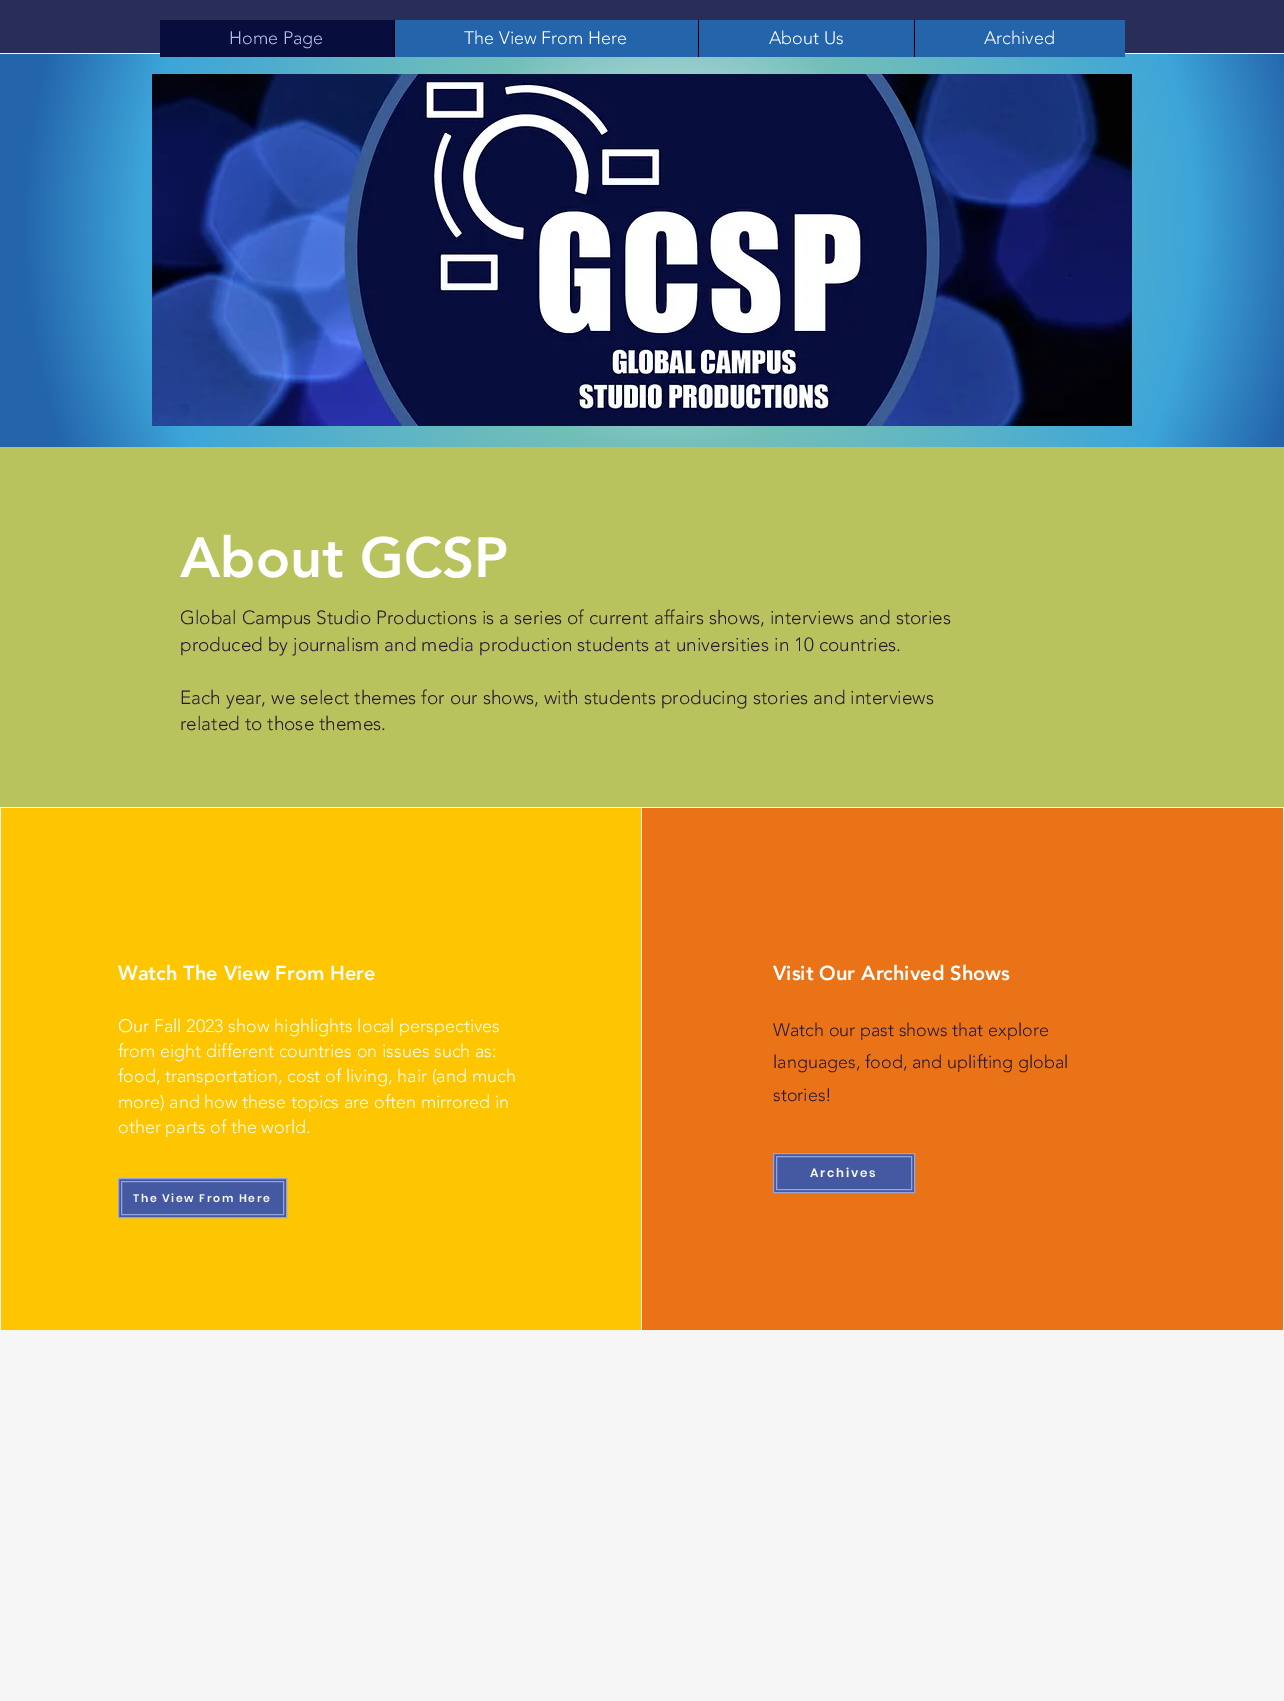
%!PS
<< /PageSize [1284 1701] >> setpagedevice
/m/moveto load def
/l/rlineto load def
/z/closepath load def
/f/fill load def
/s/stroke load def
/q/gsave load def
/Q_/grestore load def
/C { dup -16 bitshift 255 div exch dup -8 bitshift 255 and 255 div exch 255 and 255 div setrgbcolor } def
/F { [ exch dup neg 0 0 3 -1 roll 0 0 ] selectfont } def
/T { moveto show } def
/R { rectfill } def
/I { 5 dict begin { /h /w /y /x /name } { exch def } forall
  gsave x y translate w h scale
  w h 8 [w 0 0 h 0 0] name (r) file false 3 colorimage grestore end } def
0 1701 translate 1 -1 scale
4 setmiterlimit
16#F6F6F6 C
0 0 1284 1701 R
16#282E57 C
0 0 1284 53 R
q 0 54 m 1284 0 l 0 393 l -1284 0 l z clip newpath 668 227 translate 703 703 scale
<< /ShadingType 3 /ColorSpace /DeviceRGB /Coords [0 0 0 0 0 1] /Extend [true true] /Function << /FunctionType 3 /Domain [0 1] /Functions [<< /FunctionType 2 /Domain [0 1] /C0 [.894 .922 .988] /C1 [.451 .749 .722] /N 1 >> << /FunctionType 2 /Domain [0 1] /C0 [.451 .749 .722] /C1 [.239 .647 .851] /N 1 >> << /FunctionType 2 /Domain [0 1] /C0 [.239 .647 .851] /C1 [.137 .392 .667] /N 1 >> << /FunctionType 2 /Domain [0 1] /C0 [.137 .392 .667] /C1 [.137 .392 .667] /N 1 >>] /Bounds [.32 .75 .92] /Encode [0 1 0 1 0 1 0 1] >> >> shfill Q_
16#2364AA C
395 20 730 37 R
16#070D3D C
160 20 234 37 R
/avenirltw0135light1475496-Light 18 F
16#B3BFE8 C
(Home Page) 229 44 T
16#000000 C
394 20 1 37 R
16#FFFFFF C
(The View From Here) 464 44 T
16#000000 C
698 20 1 37 R
16#FFFFFF C
(About Us) 769 44 T
16#000000 C
914 20 1 37 R
16#FFFFFF C
(Archived) 984 44 T
(1.rgb) 152 74 980 352 I
16#B9C35D C
0 447 1284 360 R
/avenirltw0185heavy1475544-Black 56 F
16#FFFFFF C
(About GCSP) 180 577 T
/avenirltw0135light1475496-Light 19 F
16#281A39 C
(Global Campus Studio Productions is a series of current affairs shows, interviews and stories) 180 624 T
(produced by journalism and media production students at universities in 10 countries.) 180 651 T
(Each year, we select themes for our shows, with students producing stories and interviews) 180 704 T
(related to those themes.) 180 730 T
16#FEC601 C
1 808 640 522 R
/avenirltw0185heavy1475544-Black 20 F
16#FFFFFF C
(Watch The View From Here) 118 980 T
/avenirltw0135light1475496-Light 18 F
(Our Fall 2023 show highlights local perspectives) 118 1032 T
(from eight different countries on issues such as:) 118 1057 T
(food, transportation, cost of living, hair \(and much) 118 1082 T
(more\) and how these topics are often mirrored in) 118 1108 T
(other parts of the world.) 118 1133 T
16#4459A1 C
118.5 1178.5 m 168 0 l 0 39 l -168 0 l z q f Q_
16#94A4DC C
s
121.5 1181.5 162 33 rectstroke
/Poppins-SemiBold 11 F
16#F6F6F6 C
133 1202 m 1.6 0 (The View From Here) ashow
16#EA7317 C
642 808 641 522 R
/avenirltw0185heavy1475544-Black 20 F
16#FFFFFF C
(Visit Our Archived Shows) 773 980 T
/avenirltw0135light1475496-Light 18 F
16#281A39 C
(Watch our past shows that explore) 773 1036 T
(languages, food, and uplifting global) 773 1068 T
(stories!) 773 1101 T
16#4459A1 C
773.5 1153.5 m 141 0 l 0 39 l -141 0 l z q f Q_
16#94A4DC C
s
776.5 1156.5 135 33 rectstroke
/Poppins-SemiBold 12 F
16#F6F6F6 C
810 1177 m 1.75 0 (Archives) ashow
showpage
